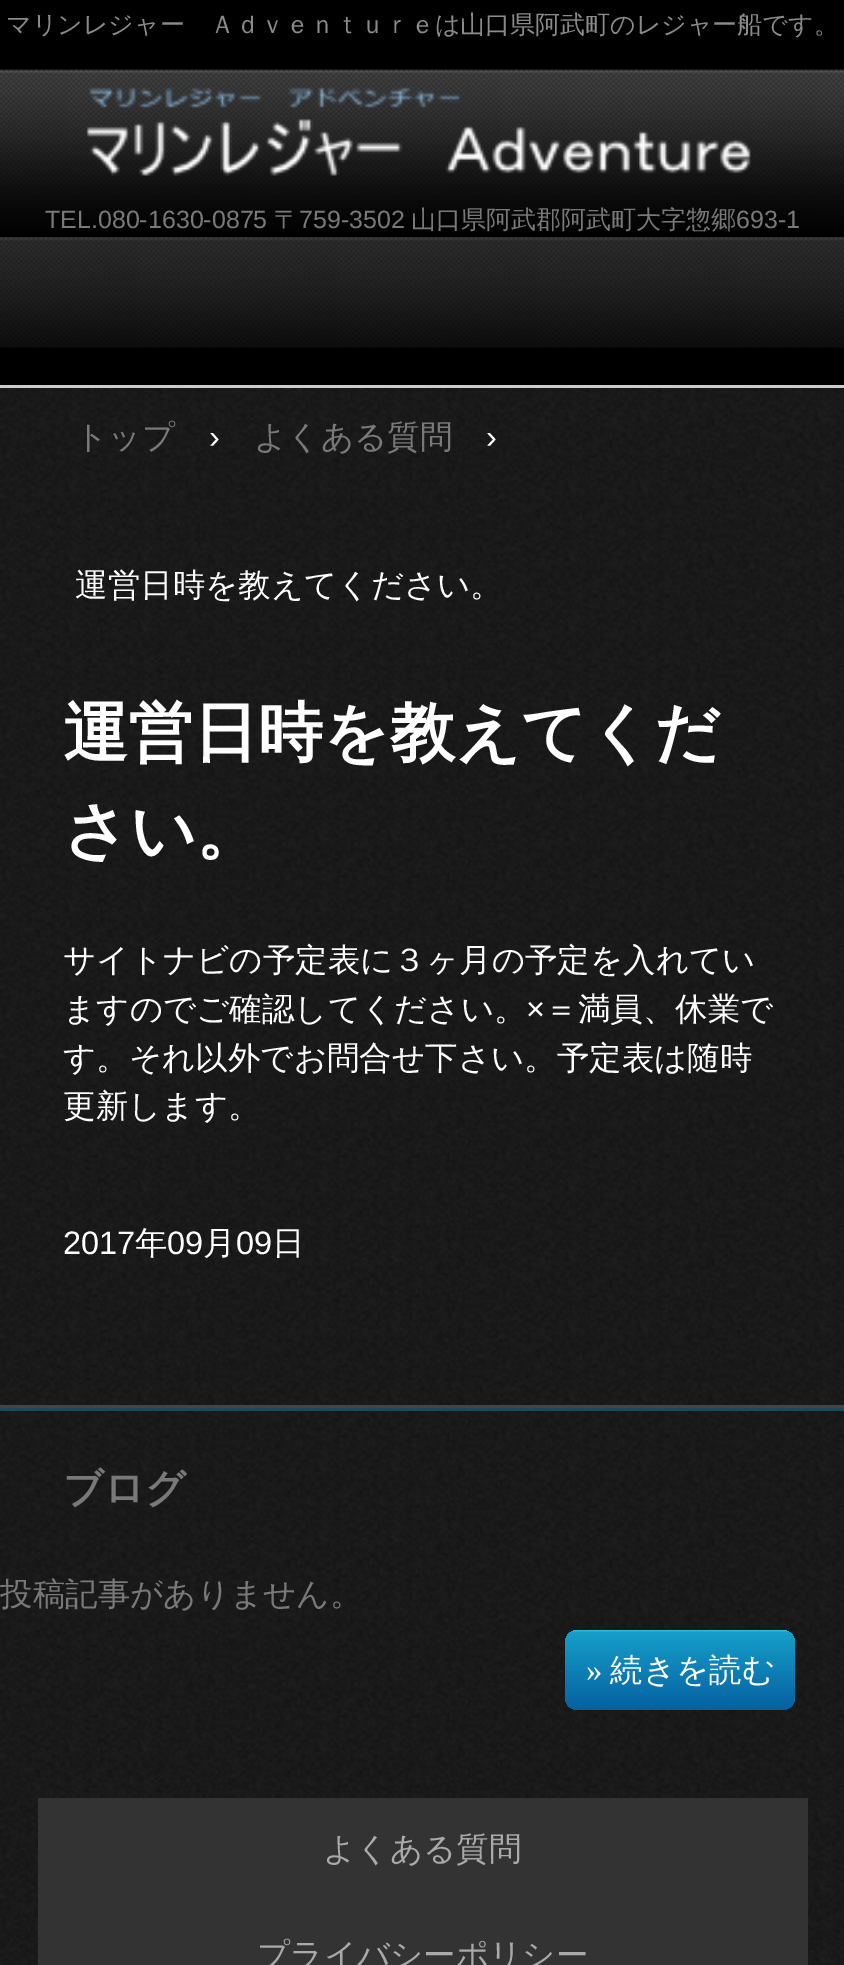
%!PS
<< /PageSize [844 1965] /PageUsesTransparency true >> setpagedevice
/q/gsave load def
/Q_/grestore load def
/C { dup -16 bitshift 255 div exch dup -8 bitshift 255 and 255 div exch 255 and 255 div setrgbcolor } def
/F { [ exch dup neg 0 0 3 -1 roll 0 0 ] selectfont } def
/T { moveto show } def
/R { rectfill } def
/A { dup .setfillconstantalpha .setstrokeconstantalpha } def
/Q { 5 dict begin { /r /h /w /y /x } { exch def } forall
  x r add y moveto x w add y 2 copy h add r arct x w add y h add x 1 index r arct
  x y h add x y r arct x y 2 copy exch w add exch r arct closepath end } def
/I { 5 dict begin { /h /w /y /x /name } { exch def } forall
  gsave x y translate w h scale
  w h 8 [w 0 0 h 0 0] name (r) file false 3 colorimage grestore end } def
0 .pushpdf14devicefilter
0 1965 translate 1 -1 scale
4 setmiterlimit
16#FFFFFF C
0 0 844 1965 R
(1.rgb) 0 237 844 1728 I
(2.rgb) 0 0 844 238 I
/WenQuanYiZenHei-Medium 25 F
16#8B8B8B C
(マリンレジャー　Ａｄｖｅｎｔｕｒｅは山口県阿武町のレジャー船です。) 6 33 T
(3.rgb) 86 87 665 89 I
/LiberationSans-Regular 25 F
16#797979 C
(TEL.080-1630-0875) 45 228 T
/WenQuanYiZenHei-Medium 25 F
(〒) 274 228 T
/LiberationSans-Regular 25 F
(759-3502) 299 228 T
/WenQuanYiZenHei-Medium 25 F
(山口県阿武郡阿武町大字惣郷) 411 228 T
/LiberationSans-Regular 25 F
(693-1) 736 228 T
16#000000 C
0 347 844 38 R
(4.rgb) 0 237 844 111 I
0.3 A
0 238 844 110 R
1 A
16#CCCCCC C
0 385 844 3 R
/WenQuanYiZenHei-Medium 32.5 F
16#797979 C
(トップ) 75 448 T
/LiberationSans-Regular 32.5 F
16#FFFFFF C
(›) 209 448 T
/WenQuanYiZenHei-Medium 32.5 F
16#797979 C
(よくある質問) 254 448 T
/LiberationSans-Regular 32.5 F
16#FFFFFF C
(›) 486 448 T
/WenQuanYiZenHei-Medium 32.5 F
(運営日時を教えてください。) 75 596 T
/WenQuanYiZenHei-Bold 65 F
(運営日時を教えてくだ) 63 755 T
(さい。) 63 853 T
/WenQuanYiZenHei-Medium 32.5 F
(サイトナビの予定表に３ヶ月の予定を入れてい) 63 971 T
(ますのでご確認してください。) 63 1020 T
/LiberationSans-Regular 32.5 F
(×) 526 1020 T
/WenQuanYiZenHei-Medium 32.5 F
(＝満員、休業で) 545 1020 T
(す。それ以外でお問合せ下さい。予定表は随時) 63 1069 T
(更新します。) 63 1117 T
/LiberationSans-Regular 32.5 F
(2017) 63 1254 T
/WenQuanYiZenHei-Medium 32.5 F
(年) 135 1254 T
/LiberationSans-Regular 32.5 F
(09) 167 1254 T
/WenQuanYiZenHei-Medium 32.5 F
(月) 203 1254 T
/LiberationSans-Regular 32.5 F
(09) 236 1254 T
/WenQuanYiZenHei-Medium 32.5 F
(日) 272 1254 T
16#444444 C
0 1405 844 3 R
16#1A4B5A C
0 1408 844 3 R
/WenQuanYiZenHei-Bold 40 F
16#797979 C
(ブログ) 63 1502 T
/WenQuanYiZenHei-Medium 32.5 F
(投稿記事がありません。) 0 1605 T
q 565 1630 230 80 13 Q clip newpath
<< /ShadingType 2 /ColorSpace /DeviceRGB /Coords [680 1630 680 1710] /Extend [true true] /Function << /FunctionType 3 /Domain [0 1] /Functions [<< /FunctionType 2 /Domain [0 1] /C0 [.129 .788 .882] /C1 [.086 .62 .784] /N 1 >> << /FunctionType 2 /Domain [0 1] /C0 [.086 .62 .784] /C1 [.02 .38 .627] /N 1 >>] /Bounds [.03] /Encode [0 1 0 1] >> >> shfill Q_
/LiberationSerif-Regular 32.5 F
16#FFFFFF C
(») 586 1681 T
/WenQuanYiZenHei-Medium 32.5 F
(続きを読む) 610 1681 T
16#333333 C
38 1798 770 167 R
16#AAAAAA C
(よくある質問) 323 1860 T
(プライバシーポリシー) 257 1966 T
.poppdf14devicefilter showpage
